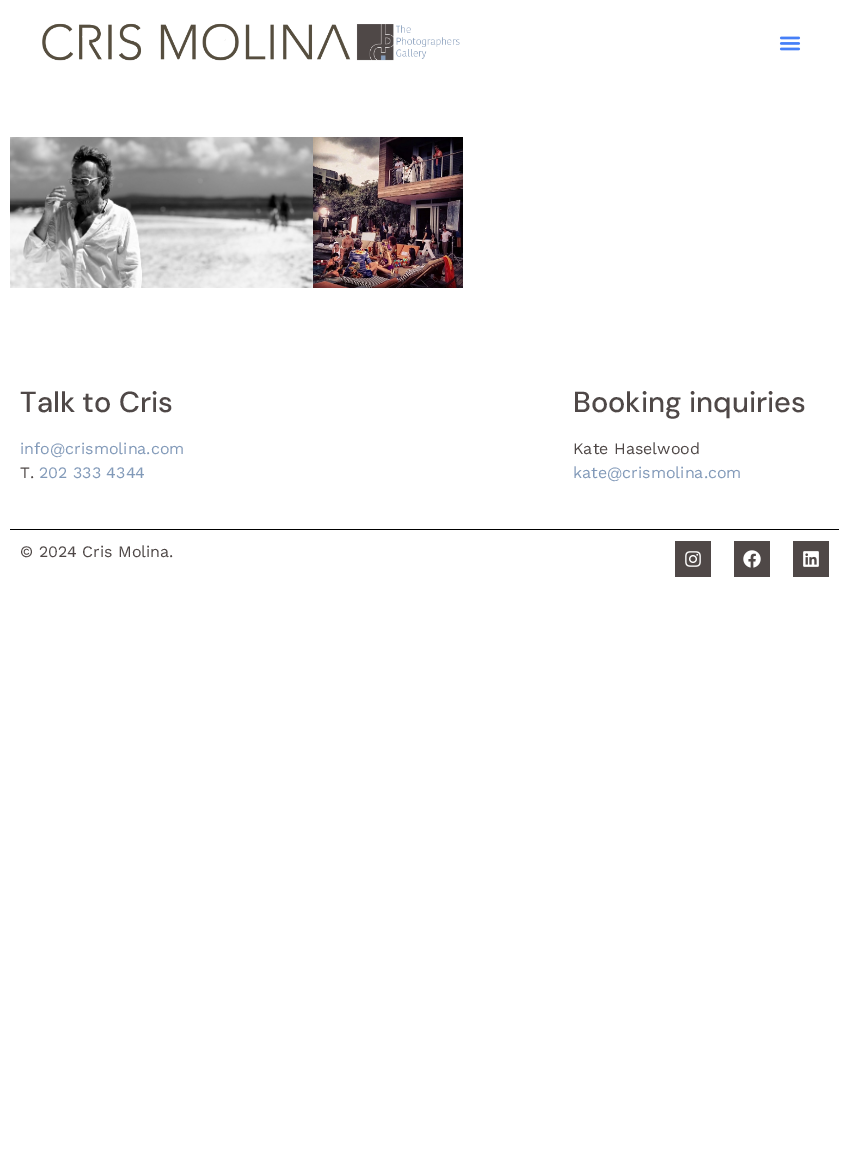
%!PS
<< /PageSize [849 1150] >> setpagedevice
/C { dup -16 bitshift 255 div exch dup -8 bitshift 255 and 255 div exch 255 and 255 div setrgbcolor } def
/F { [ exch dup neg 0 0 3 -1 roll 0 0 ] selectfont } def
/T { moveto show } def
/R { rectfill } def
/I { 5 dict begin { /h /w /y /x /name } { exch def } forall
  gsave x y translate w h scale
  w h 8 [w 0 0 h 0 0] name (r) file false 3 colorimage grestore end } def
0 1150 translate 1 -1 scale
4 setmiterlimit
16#FFFFFF C
0 0 849 1150 R
(1.rgb) 42 23 418 38 I
(2.rgb) 779 36 22 15 I
(3.rgb) 10 137 303 151 I
(4.rgb) 313 137 150 151 I
/DMSans-Medium 29 F
16#4F4847 C
(Talk to Cris) 20 412 T
/WorkSans-Regular 16 F
16#829AB9 C
(info@crismolina.com) 20 454 T
16#4F4847 C
(T.) 20 478 T
16#829AB9 C
(202 333 4344) 39 478 T
/DMSans-Medium 29 F
16#4F4847 C
(Booking inquiries) 573 412 T
/WorkSans-Regular 16 F
(Kate Haselwood) 573 454 T
16#829AB9 C
(kate@crismolina.com) 573 478 T
16#000000 C
10 529 829 1 R
16#4F4847 C
(© 2024 Cris Molina.) 20 557 T
675 541 36 36 R
(5.rgb) 685 551 16 16 I
734 541 36 36 R
(6.rgb) 743 550 18 18 I
793 541 36 36 R
(7.rgb) 803 551 16 16 I
showpage
